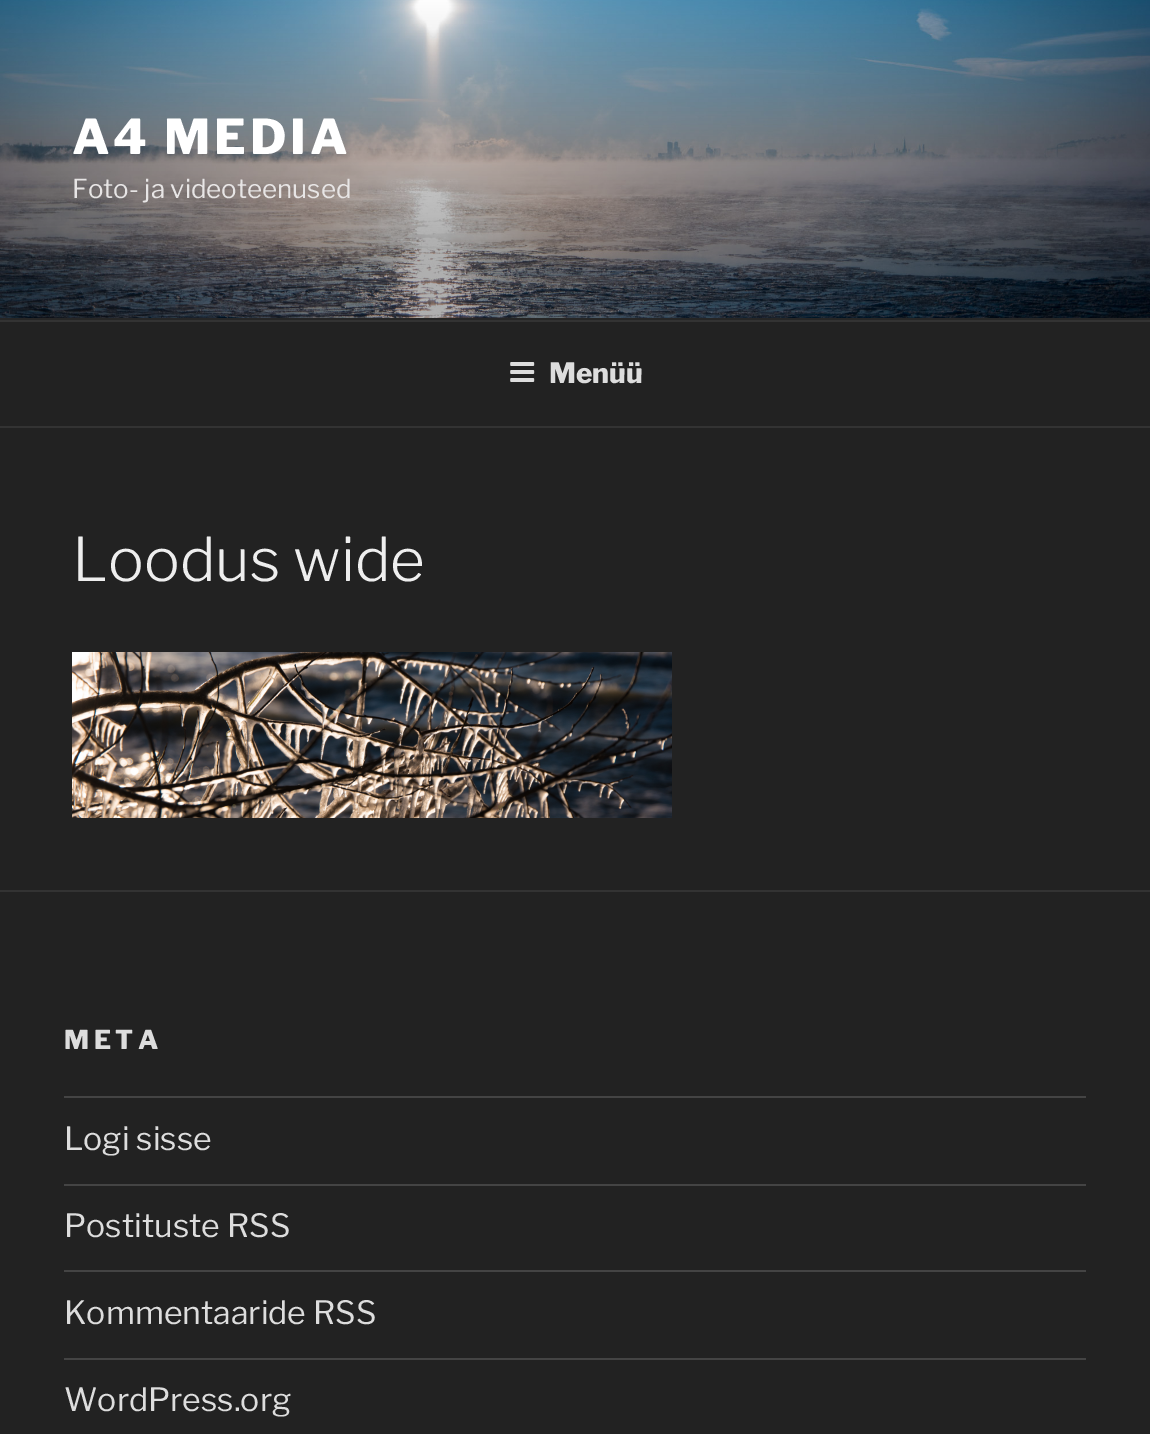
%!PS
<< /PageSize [1150 1434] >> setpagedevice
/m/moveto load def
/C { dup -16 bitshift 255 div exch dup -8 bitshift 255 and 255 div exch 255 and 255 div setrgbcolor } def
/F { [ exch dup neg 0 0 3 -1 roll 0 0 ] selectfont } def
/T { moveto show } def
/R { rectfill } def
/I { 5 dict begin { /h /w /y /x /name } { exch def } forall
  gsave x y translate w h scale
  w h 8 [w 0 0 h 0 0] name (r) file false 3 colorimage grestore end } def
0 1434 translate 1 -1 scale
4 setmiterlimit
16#222222 C
0 0 1150 1434 R
16#262626 C
0 318 1150 2 R
(1.rgb) 0 0 1150 318 I
/LibreFranklin-Thin 48 F
16#FFFFFF C
72 154 m 3.75 0 (A4 MEDIA) ashow
/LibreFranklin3-Thin 26 F
16#E7E5E5 C
(Foto- ja videoteenused) 72 198 T
16#333333 C
0 320 1150 2 R
0 426 1150 2 R
(2.rgb) 510 362 25 20 I
/LibreFranklin-Thin 28 F
16#DDDDDD C
(Menüü) 549 383 T
/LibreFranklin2-Thin 60 F
16#EEEEEE C
(Loodus wide) 72 581 T
(3.rgb) 72 652 600 166 I
16#333333 C
0 890 1150 2 R
/LibreFranklin-Thin 26 F
16#DDDDDD C
64 1049 m 4.5 0 (META) ashow
16#444444 C
64 1096 1022 2 R
64 1184 1022 2 R
/LibreFranklin3-Thin 32 F
16#DDDDDD C
(Logi sisse) 64 1150 T
16#444444 C
64 1270 1022 2 R
16#DDDDDD C
(Postituste RSS) 64 1237 T
16#444444 C
64 1358 1022 2 R
16#DDDDDD C
(Kommentaaride RSS) 64 1324 T
(WordPress.org) 64 1411 T
showpage
